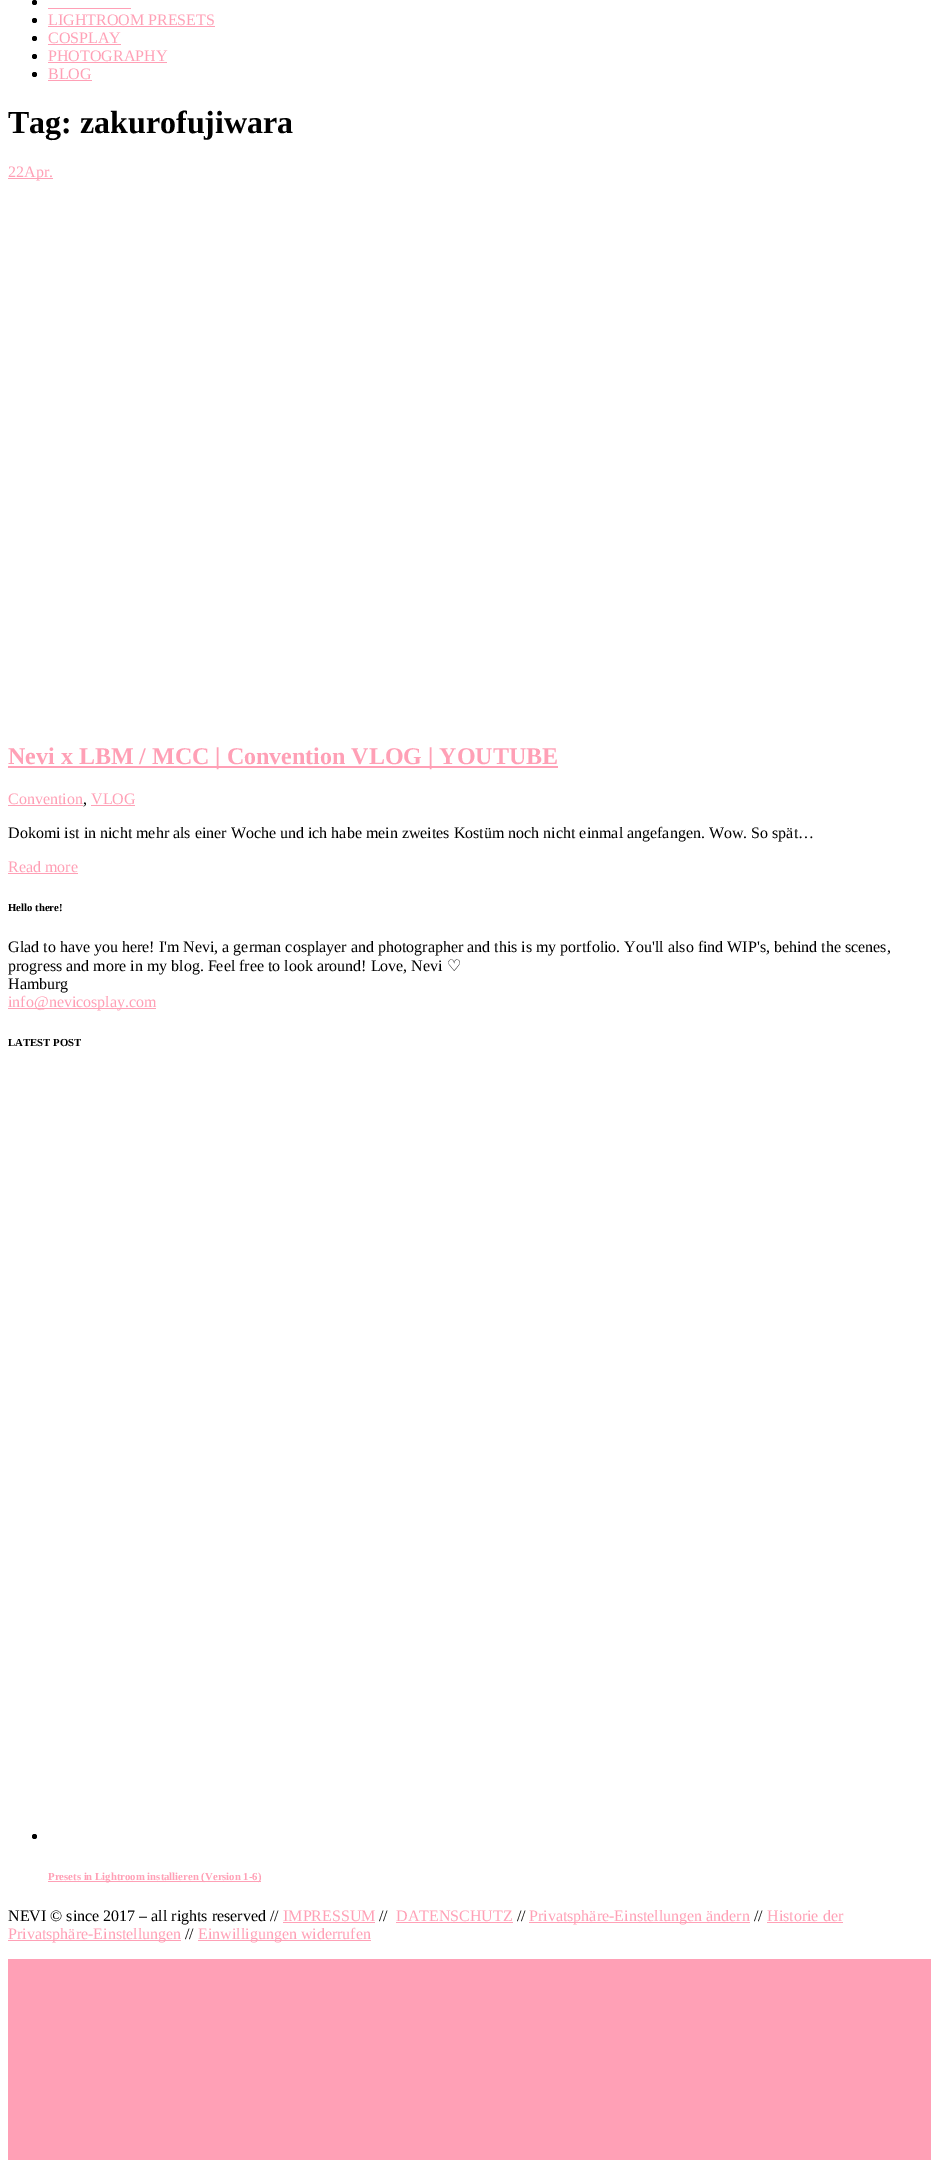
%!PS
<< /PageSize [939 2160] >> setpagedevice
/f/fill load def
/C { dup -16 bitshift 255 div exch dup -8 bitshift 255 and 255 div exch 255 and 255 div setrgbcolor } def
/F { [ exch dup neg 0 0 3 -1 roll 0 0 ] selectfont } def
/T { moveto show } def
/R { rectfill } def
/O { newpath 0 360 arc closepath } def
0 2160 translate 1 -1 scale
4 setmiterlimit
16#FFFFFF C
0 0 939 2160 R
16#000000 C
34.5 2.5 2.5 O f
16#FFA0B6 C
48 8 83 1 R
16#000000 C
34.5 20.5 2.5 O f
/LiberationSerif-Regular 16 F
16#FFA0B6 C
(LIGHTROOM PRESETS) 48 25 T
48 26 167 1 R
16#000000 C
34.5 38.5 2.5 O f
16#FFA0B6 C
(COSPLAY) 48 43 T
48 44 73 1 R
16#000000 C
34.5 56.5 2.5 O f
16#FFA0B6 C
(PHOTOGRAPHY) 48 61 T
48 62 119 1 R
16#000000 C
34.5 74.5 2.5 O f
16#FFA0B6 C
(BLOG) 48 79 T
48 80 44 1 R
/LiberationSerif-Bold 32 F
16#000000 C
(Tag: zakurofujiwara) 8 133 T
16#FFA0B6 C
8 178 45 1 R
/LiberationSerif-Regular 16 F
(22Apr.) 8 177 T
8 766 550 2 R
/LiberationSerif-Bold 24 F
(Nevi x LBM / MCC | Convention VLOG | YOUTUBE) 8 764 T
/LiberationSerif-Regular 16 F
(Convention) 8 804 T
8 805 75 1 R
16#000000 C
(,) 83 804 T
16#FFA0B6 C
(VLOG) 91 804 T
91 805 44 1 R
16#000000 C
(Dokomi ist in nicht mehr als einer Woche und ich habe mein zweites Kostüm noch nicht einmal angefangen. Wow. So spät…) 8 838 T
16#FFA0B6 C
(Read more) 8 872 T
8 873 70 1 R
/LiberationSerif-Bold 10.75 F
16#000000 C
(Hello there!) 8 911 T
/LiberationSerif-Regular 16 F
(Glad to have you here! I'm Nevi, a german cosplayer and photographer and this is my portfolio. You'll also find WIP's, behind the scenes,) 8 952 T
(progress and more in my blog. Feel free to look around! Love, Nevi) 8 971 T
/DejaVuSans-Regular 16 F
(♡) 447 971 T
/LiberationSerif-Regular 16 F
(Hamburg) 8 989 T
16#FFA0B6 C
8 1008 148 1 R
(info@nevicosplay.com) 8 1007 T
/LiberationSerif-Bold 10.75 F
16#000000 C
(LATEST POST) 8 1046 T
34.5 1836.5 2.5 O f
16#FFA0B6 C
48 1881 213 1 R
(Presets in Lightroom installieren \(Version 1-6\)) 48 1880 T
/LiberationSerif-Regular 16 F
16#000000 C
(NEVI © since 2017 – all rights reserved //) 8 1921 T
16#FFA0B6 C
(IMPRESSUM) 283 1921 T
283 1922 92 1 R
16#000000 C
(//) 379 1921 T
16#FFA0B6 C
(DATENSCHUTZ) 396 1921 T
396 1922 117 1 R
16#000000 C
(//) 517 1921 T
16#FFA0B6 C
529 1922 221 1 R
(Privatsphäre-Einstellungen ändern) 529 1921 T
16#000000 C
(//) 754 1921 T
16#FFA0B6 C
(Historie der) 767 1921 T
767 1922 76 1 R
8 1940 173 1 R
(Privatsphäre-Einstellungen) 8 1939 T
16#000000 C
(//) 185 1939 T
16#FFA0B6 C
198 1940 173 1 R
(Einwilligungen widerrufen) 198 1939 T
8 1959 923 201 R
showpage
